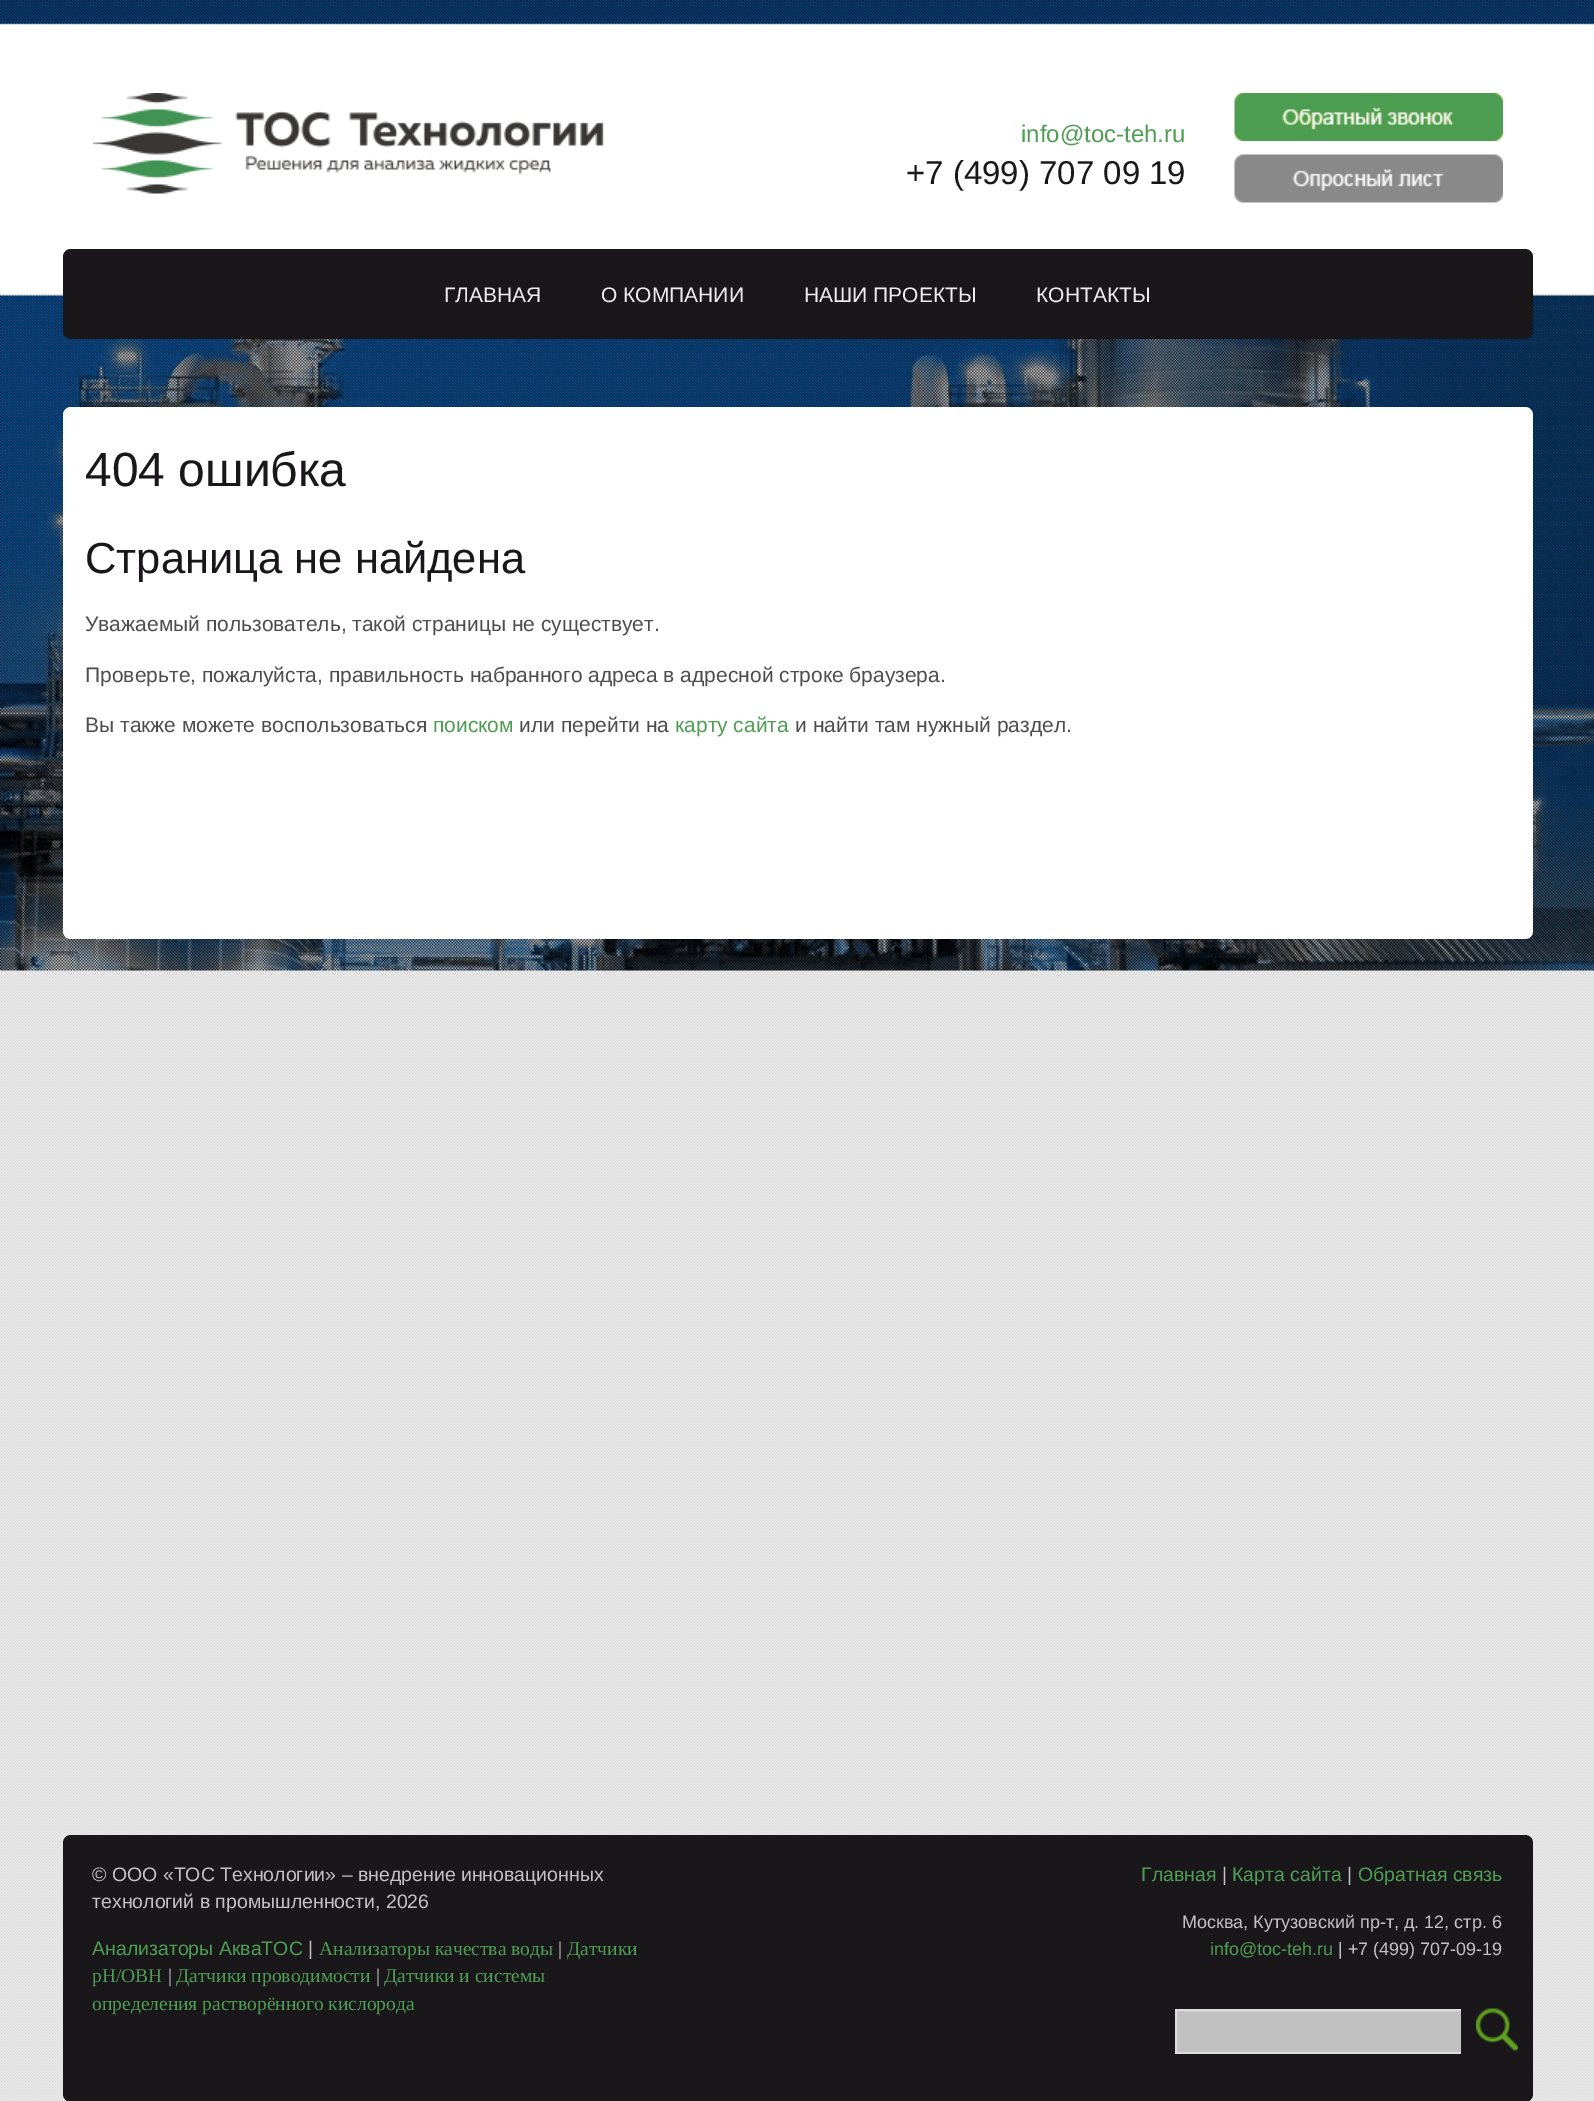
%!PS
<< /PageSize [1594 2101] >> setpagedevice
/f/fill load def
/q/gsave load def
/Q_/grestore load def
/w/setlinewidth load def
/C { dup -16 bitshift 255 div exch dup -8 bitshift 255 and 255 div exch 255 and 255 div setrgbcolor } def
/F { [ exch dup neg 0 0 3 -1 roll 0 0 ] selectfont } def
/T { moveto show } def
/R { rectfill } def
/Q { 5 dict begin { /r /h /w /y /x } { exch def } forall
  x r add y moveto x w add y 2 copy h add r arct x w add y h add x 1 index r arct
  x y h add x y r arct x y 2 copy exch w add exch r arct closepath end } def
/I { 5 dict begin { /h /w /y /x /name } { exch def } forall
  gsave x y translate w h scale
  w h 8 [w 0 0 h 0 0] name (r) file false 3 colorimage grestore end } def
0 2101 translate 1 -1 scale
4 setmiterlimit
16#FFFFFF C
0 0 1594 2101 R
(1.rgb) 0 294 1594 1807 I
(2.rgb) 0 295 1594 676 I
(3.rgb) 0 0 63 294 I
(4.rgb) 1533 0 61 294 I
(5.rgb) 63 0 1470 257 I
(6.rgb) 93 93 511 101 I
(7.rgb) 1234 93 269 48 I
/LiberationSans-Regular 24 F
16#4D9D52 C
(info@toc-teh.ru) 1021 142 T
/LiberationSans-Regular 33 F
16#1A171B C
(+7 \(499\) 707 09 19) 906 184 T
(8.rgb) 1234 154 269 49 I
63 249 1470 90 8 Q f
/LiberationSans-Regular 21 F
16#EEEEEE C
(ГЛАВНАЯ) 444 302 T
(О КОМПАНИИ) 601 302 T
(НАШИ ПРОЕКТЫ) 804 302 T
(КОНТАКТЫ) 1036 302 T
16#FFFFFF C
63 407 1470 532 8 Q f
/LiberationSans-Regular 48 F
16#1A171B C
(404 ошибка) 85 486 T
/LiberationSans-Regular 43.5 F
(Страница не найдена) 85 573 T
/LiberationSans-Regular 21 F
16#4D4D4D C
(Уважаемый пользователь, такой страницы не существует.) 85 631 T
(Проверьте, пожалуйста, правильность набранного адреса в адресной строке браузера.) 85 682 T
(Вы также можете воспользоваться) 85 732 T
16#4D9D52 C
(поиском) 433 732 T
16#4D4D4D C
(или перейти на) 519 732 T
16#4D9D52 C
(карту сайта) 675 732 T
16#4D4D4D C
(и найти там нужный раздел.) 795 732 T
16#1A171B C
63 1835 1470 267 8 Q f
/LiberationSans-Regular 19.5 F
16#C2C2C2 C
(© ООО «ТОС Технологии» – внедрение инновационных) 92 1881 T
(технологий в промышленности, 2026) 92 1908 T
16#4D9D52 C
(Анализаторы АкваТОС) 92 1955 T
16#C2C2C2 C
(|) 308 1955 T
/LiberationSerif-Regular 19.5 F
16#4D9D52 C
(Анализаторы качества воды) 319 1955 T
16#C2C2C2 C
(|) 558 1955 T
16#4D9D52 C
(Датчики) 567 1955 T
(pH/OBH) 92 1982 T
16#C2C2C2 C
(|) 168 1982 T
16#4D9D52 C
(Датчики проводимости) 176 1982 T
16#C2C2C2 C
(|) 376 1982 T
16#4D9D52 C
(Датчики и системы) 384 1982 T
(определения растворённого кислорода) 92 2010 T
/LiberationSans-Regular 19.5 F
(Главная) 1141 1881 T
16#C2C2C2 C
(|) 1222 1881 T
16#4D9D52 C
(Карта сайта) 1232 1881 T
16#C2C2C2 C
(|) 1347 1881 T
16#4D9D52 C
(Обратная связь) 1358 1881 T
/LiberationSans-Regular 18 F
16#C2C2C2 C
(Москва, Кутузовский пр-т, д. 12, стр. 6) 1182 1928 T
16#4D9D52 C
(info@toc-teh.ru) 1210 1955 T
16#C2C2C2 C
(| +7 \(499\) 707-09-19) 1338 1955 T
16#C1C1C1 C
1177 2011 284 41 R
q
1175 2009 286 45 rectclip
16#DDDDDD C
2 w
1176 2010 299 43 rectstroke
Q_
(9.rgb) 1476 2008 42 43 I
showpage
